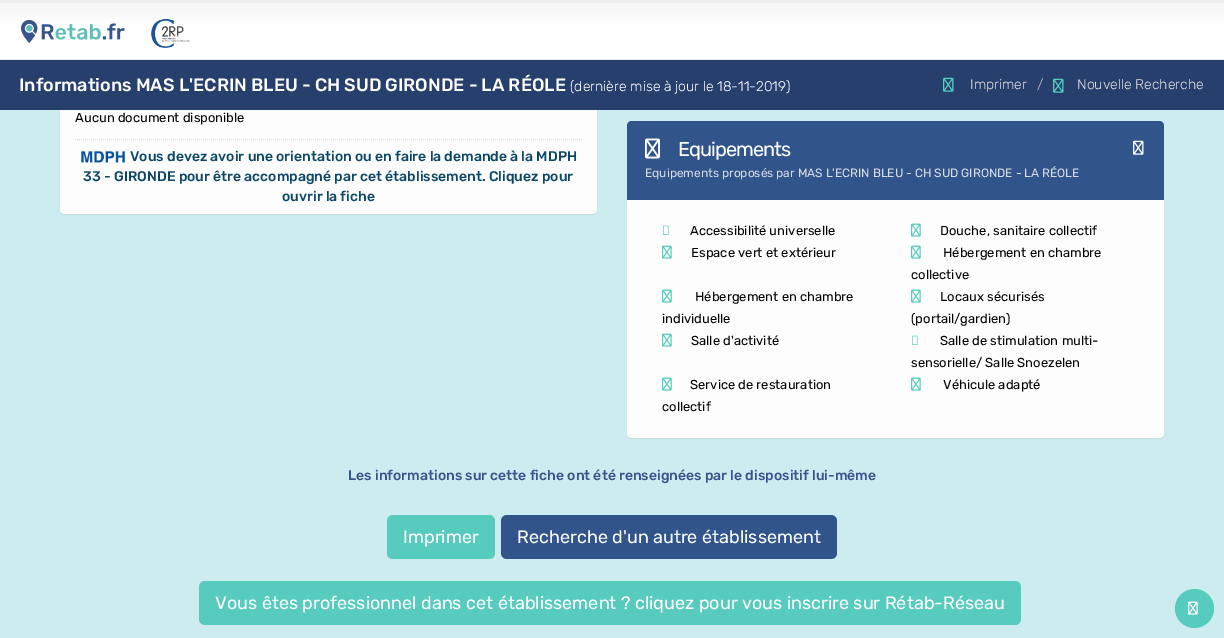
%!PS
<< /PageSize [1224 638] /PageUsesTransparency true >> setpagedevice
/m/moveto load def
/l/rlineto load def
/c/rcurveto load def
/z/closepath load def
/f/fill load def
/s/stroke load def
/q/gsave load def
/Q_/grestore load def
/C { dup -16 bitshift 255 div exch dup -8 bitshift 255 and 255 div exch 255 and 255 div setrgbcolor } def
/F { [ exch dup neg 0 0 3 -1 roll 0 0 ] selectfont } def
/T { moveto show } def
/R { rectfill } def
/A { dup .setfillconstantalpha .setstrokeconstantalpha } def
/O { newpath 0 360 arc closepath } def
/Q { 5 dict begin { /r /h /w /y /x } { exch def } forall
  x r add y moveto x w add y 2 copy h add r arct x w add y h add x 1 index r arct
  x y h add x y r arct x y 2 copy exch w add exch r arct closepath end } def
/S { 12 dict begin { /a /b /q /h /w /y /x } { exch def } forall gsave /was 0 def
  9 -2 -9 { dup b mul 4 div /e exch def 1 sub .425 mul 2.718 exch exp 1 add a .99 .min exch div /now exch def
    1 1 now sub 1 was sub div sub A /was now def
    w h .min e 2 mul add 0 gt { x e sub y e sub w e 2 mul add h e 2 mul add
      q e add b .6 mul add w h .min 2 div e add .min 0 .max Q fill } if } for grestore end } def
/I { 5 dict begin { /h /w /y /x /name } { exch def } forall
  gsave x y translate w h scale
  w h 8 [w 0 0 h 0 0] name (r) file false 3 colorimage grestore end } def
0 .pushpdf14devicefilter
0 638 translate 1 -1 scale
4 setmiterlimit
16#CDECEF C
0 0 1224 638 R
16#000000 C
60 -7 537 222 5 .5 .05 S
16#FDFDFD C
60 -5 m 537 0 l 0 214 l 0 3 -2 5 -5 5 c -527 0 l -3 0 -5 -2 -5 -5 c z f
q 0 3 m 1224 0 l 0 56 l -1224 0 l z clip newpath
<< /ShadingType 2 /ColorSpace /DeviceRGB /Coords [612 3 612 59] /Extend [true true] /Function << /FunctionType 3 /Domain [0 1] /Functions [<< /FunctionType 2 /Domain [0 1] /C0 [.965 .965 .965] /C1 [1 1 1] /N 1 >> << /FunctionType 2 /Domain [0 1] /C0 [1 1 1] /C1 [1 1 1] /N 1 >>] /Bounds [.45] /Encode [0 1 0 1] >> >> shfill Q_
16#EDEDED C
0 0 1224 3 R
16#E9E9E6 C
0 59 1224 1 R
(1.rgb) 21 19 104 24 I
(2.rgb) 151 18 39 30 I
16#263F6D C
0 60 1224 50 R
/Rubik-Medium 18 F
16#FFFFFF C
(Informations MAS L'ECRIN BLEU - CH SUD GIRONDE - LA RÉOLE) 19 91 T
/Rubik-Light 14 F
(\(dernière mise à jour le 18-11-2019\)) 570 91 T
(3.rgb) 943 77 11 15 I
16#E0DFDF C
(Imprimer) 970 89 T
16#C3C3C3 C
(/) 1037 89 T
(3.rgb) 1053 78 11 15 I
16#E0DFDF C
(Nouvelle Recherche) 1077 89 T
/Rubik-Regular 13 F
16#000000 C
(Aucun document disponible) 75 122 T
16#DDDDDD C
[1 1] 0 setdash
75 139.5 m 507 0 l s
(4.rgb) 81 149 46 14 I
/Rubik-Medium 14 F
16#0C4767 C
(Vous devez avoir une orientation ou en faire la demande à la MDPH) 130 161 T
(33 - GIRONDE pour être accompagné par cet établissement. Cliquez pour) 83 181 T
(ouvrir la fiche) 282 201 T
16#000000 C
627 201 537 238 5 .5 .05 S
16#31558B C
632 121 m 527 0 l 3 0 5 2 5 5 c 0 74 l -537 0 l 0 -74 l 0 -3 2 -5 5 -5 c z f
(5.rgb) 645 138 15 21 I
/Rubik-Regular 20 F
16#FFFFFF C
678 156 m -1 0 (Equipements) ashow
(6.rgb) 1133 140 11 15 I
/Rubik-Regular 12 F
16#D6DDE8 C
(Equipements proposés par MAS L'ECRIN BLEU - CH SUD GIRONDE - LA RÉOLE) 645 177 T
16#FDFDFD C
627 200 m 537 0 l 0 233 l 0 3 -2 5 -5 5 c -527 0 l -3 0 -5 -2 -5 -5 c z f
(7.rgb) 663 225 6 10 I
/Rubik-Regular 13 F
16#000000 C
(Accessibilité universelle) 690 235 T
(8.rgb) 911 223 10 14 I
(Douche, sanitaire collectif) 940 235 T
(8.rgb) 662 245 10 14 I
(Espace vert et extérieur) 691 257 T
(8.rgb) 911 245 10 14 I
(Hébergement en chambre) 943 257 T
(collective) 911 279 T
(8.rgb) 662 289 10 14 I
(Hébergement en chambre) 695 301 T
(individuelle) 662 323 T
(8.rgb) 911 289 10 14 I
(Locaux sécurisés) 940 301 T
(\(portail/gardien\)) 911 323 T
(8.rgb) 662 333 10 14 I
(Salle d'activité) 691 345 T
(7.rgb) 912 335 6 10 I
(Salle de stimulation multi-) 940 345 T
(sensorielle/ Salle Snoezelen) 911 367 T
(8.rgb) 662 377 10 14 I
(Service de restauration) 690 389 T
(collectif) 662 411 T
(8.rgb) 911 377 10 14 I
(Véhicule adapté) 943 389 T
/Rubik-Medium 14 F
16#35558C C
(Les informations sur cette fiche ont été renseignées par le dispositif lui-même) 348 480 T
16#56CBBE C
387 515 108 44 6 Q f
/Rubik-Regular 18 F
16#FFFFFF C
(Imprimer) 403 543 T
16#31558B C
501 515 336 44 6 Q f
16#FFFFFF C
(Recherche d'un autre établissement) 517 543 T
16#56CBBE C
199 581 822 44 6 Q f
16#FFFFFF C
(Vous êtes professionnel dans cet établissement ? cliquez pour vous inscrire sur Rétab-Réseau) 215 609 T
16#56CBBE C
1194.5 608.5 19.5 O f
(9.rgb) 1188 601 10 14 I
.poppdf14devicefilter showpage
